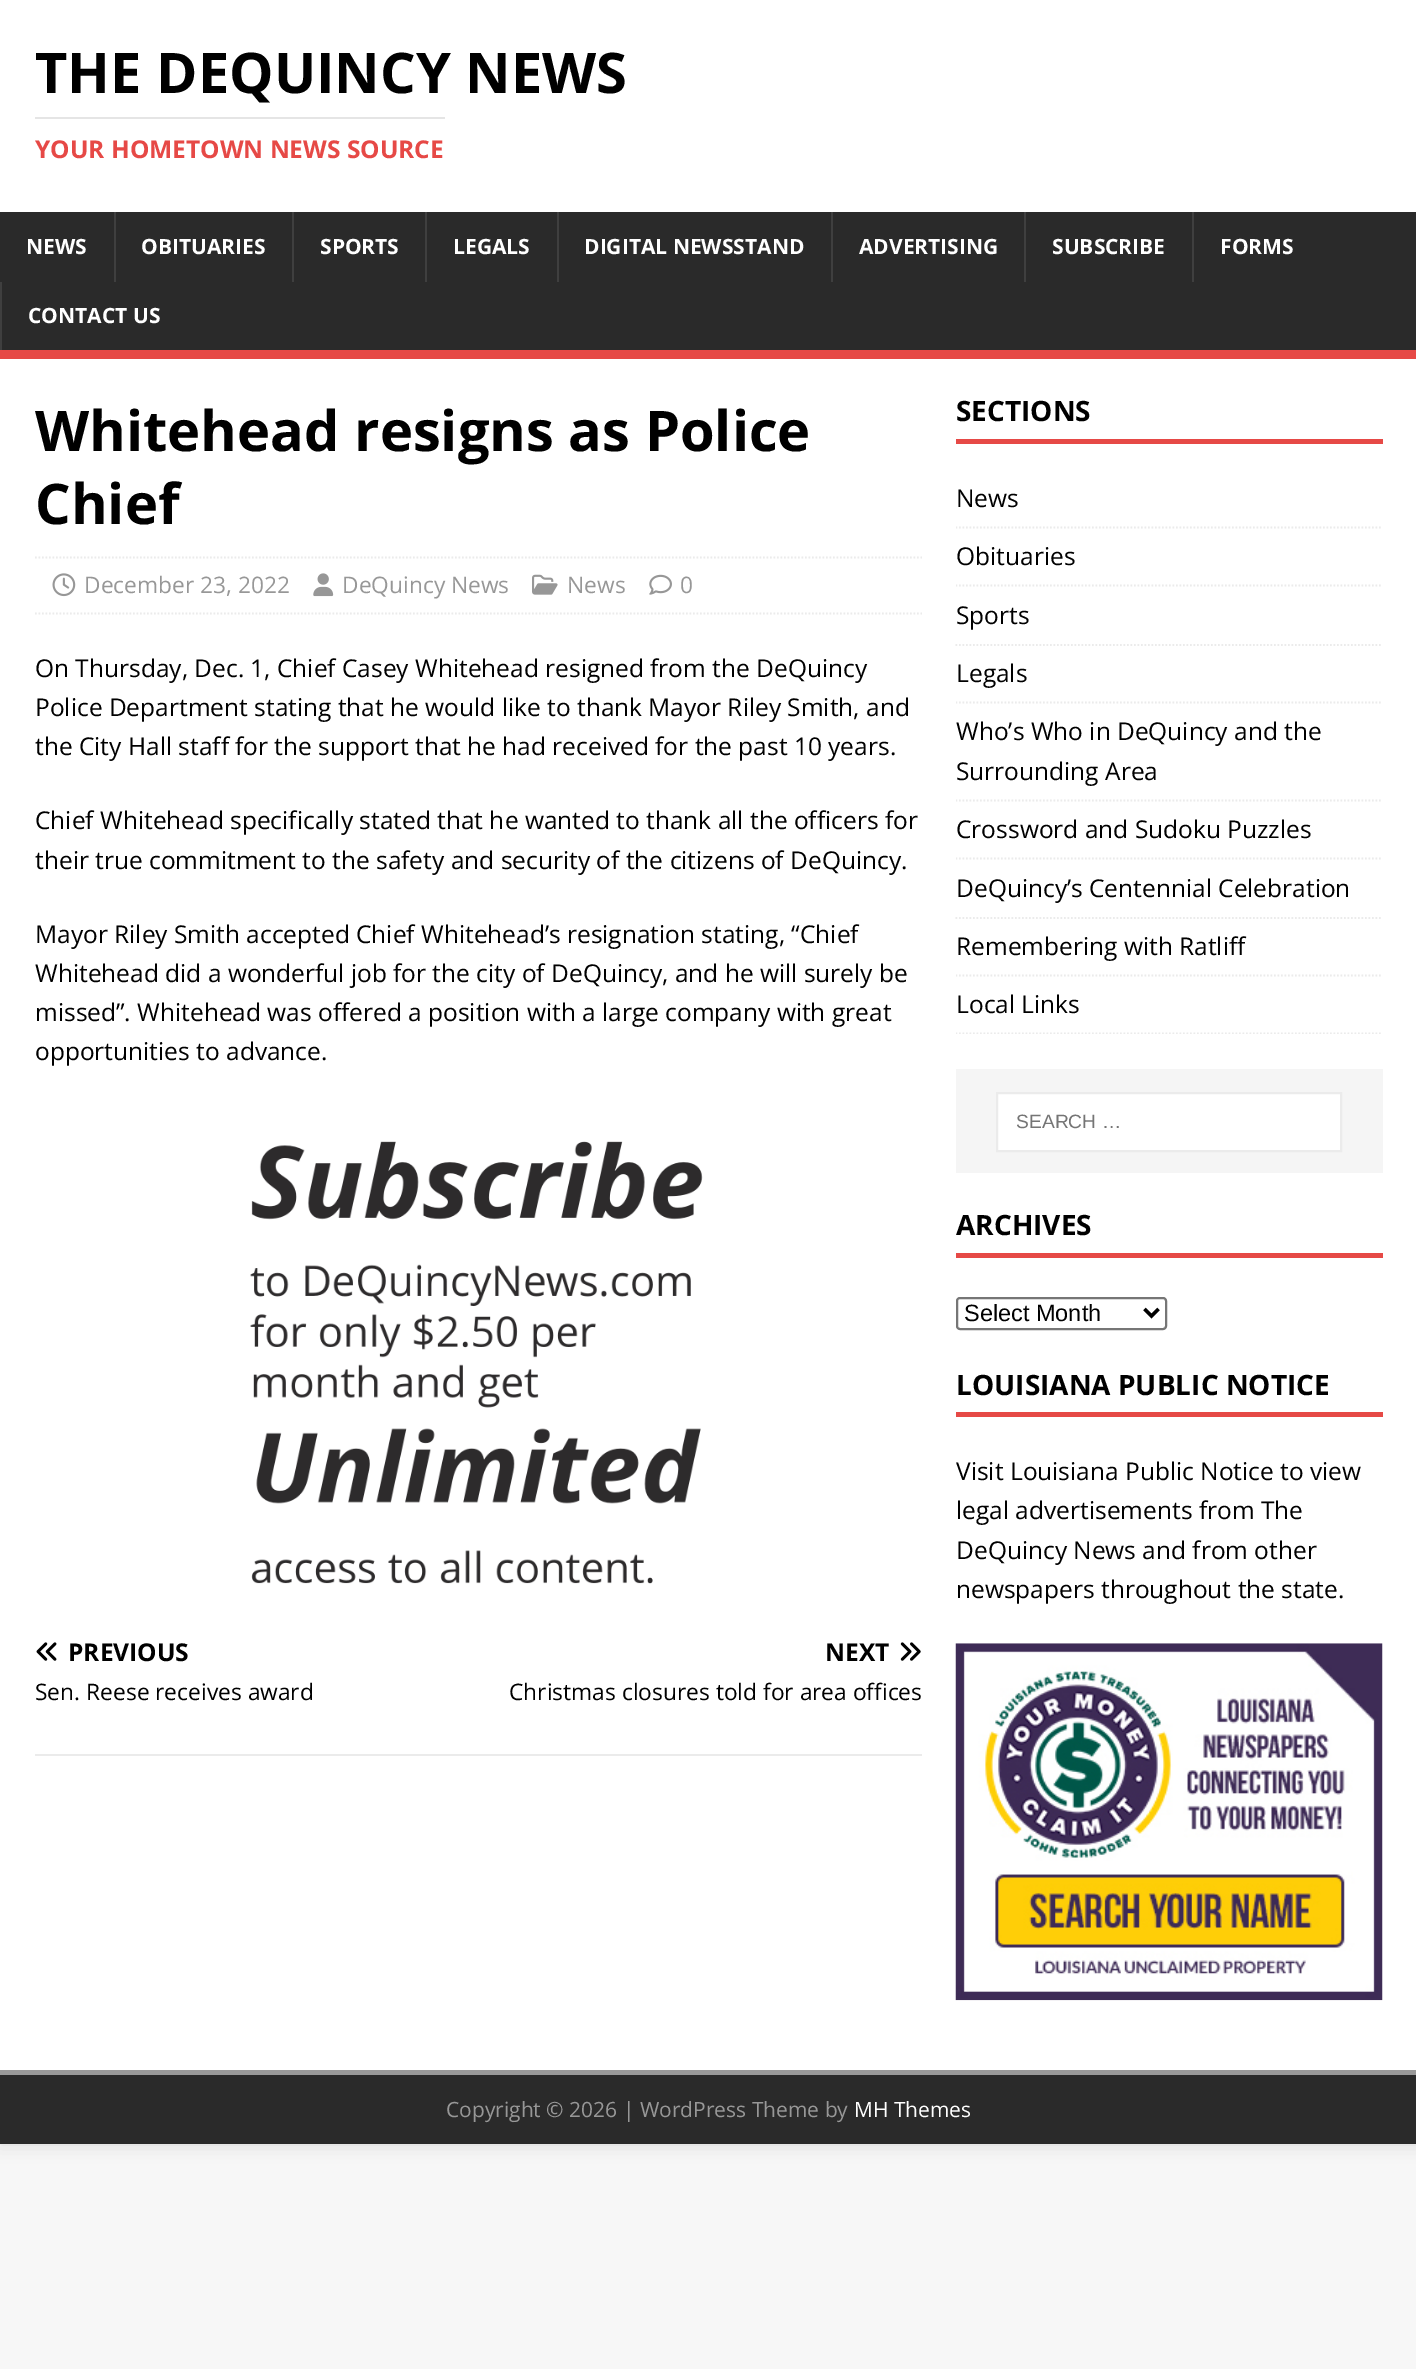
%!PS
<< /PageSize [1416 2369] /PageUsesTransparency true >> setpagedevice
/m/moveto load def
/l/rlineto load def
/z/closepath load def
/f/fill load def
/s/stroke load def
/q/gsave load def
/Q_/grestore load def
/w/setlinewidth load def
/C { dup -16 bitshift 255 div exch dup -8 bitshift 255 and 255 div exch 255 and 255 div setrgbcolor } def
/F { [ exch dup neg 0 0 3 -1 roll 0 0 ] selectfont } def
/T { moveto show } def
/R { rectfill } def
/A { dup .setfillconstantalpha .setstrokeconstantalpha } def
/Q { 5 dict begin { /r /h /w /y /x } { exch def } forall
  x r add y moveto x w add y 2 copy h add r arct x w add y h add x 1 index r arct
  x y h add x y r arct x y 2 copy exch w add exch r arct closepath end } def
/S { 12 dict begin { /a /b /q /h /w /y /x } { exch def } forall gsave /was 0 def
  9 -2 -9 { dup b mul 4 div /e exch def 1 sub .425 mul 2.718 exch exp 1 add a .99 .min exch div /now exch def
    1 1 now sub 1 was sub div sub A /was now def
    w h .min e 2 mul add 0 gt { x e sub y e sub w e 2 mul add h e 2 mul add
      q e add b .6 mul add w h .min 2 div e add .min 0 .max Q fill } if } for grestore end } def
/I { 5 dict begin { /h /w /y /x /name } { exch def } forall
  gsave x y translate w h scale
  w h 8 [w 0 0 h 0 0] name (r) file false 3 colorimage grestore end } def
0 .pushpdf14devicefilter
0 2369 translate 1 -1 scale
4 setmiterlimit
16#F7F7F7 C
0 0 1416 2369 R
16#323232 C
0 0 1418 2144 0 9 .17 S
16#FFFFFF C
0 0 1416 212 R
/OpenSans-Bold 56 F
16#000000 C
(THE DEQUINCY NEWS) 35 93 T
16#E5E5E5 C
35 117 410 2 R
/OpenSans-Bold 24.5 F
16#E64946 C
(YOUR HOMETOWN NEWS SOURCE) 35 158 T
16#2A2A2A C
0 212 1416 138 R
16#E64946 C
0 350 1416 9 R
/OpenSans-Bold 21 F
16#FFFFFF C
(NEWS) 26 254 T
16#3F3F3F C
114 212 2 70 R
16#FFFFFF C
(OBITUARIES) 141 254 T
16#3F3F3F C
292 212 2 70 R
16#FFFFFF C
(SPORTS) 320 254 T
16#3F3F3F C
425 212 2 70 R
16#FFFFFF C
(LEGALS) 453 254 T
16#3F3F3F C
557 212 2 70 R
16#FFFFFF C
(DIGITAL NEWSSTAND) 584 254 T
16#3F3F3F C
831 212 2 70 R
16#FFFFFF C
(ADVERTISING) 859 254 T
16#3F3F3F C
1024 212 2 70 R
16#FFFFFF C
(SUBSCRIBE) 1052 254 T
16#3F3F3F C
1192 212 2 70 R
16#FFFFFF C
(FORMS) 1220 254 T
16#3F3F3F C
0 282 2 68 R
16#FFFFFF C
(CONTACT US) 28 323 T
0 359 1416 1711 R
/OpenSans-Bold 56 F
16#000000 C
(Whitehead resigns as Police) 35 451 T
(Chief) 35 524 T
16#EBEBEB C
1.8 w
[1.75 1.75] 0 setdash
35 557.5 m 887 0 l s
35 613.5 m 887 0 l s
(1.rgb) 52 573 24 24 I
/OpenSans-Regular 22.75 F
16#979797 C
(December 23, 2022) 84 593 T
(2.rgb) 313 573 21 24 I
(DeQuincy News) 342 593 T
(3.rgb) 532 574 26 21 I
(News) 567 593 T
(4.rgb) 649 574 23 21 I
(0) 680 593 T
/OpenSans-Regular 24.5 F
16#000000 C
(On Thursday, Dec. 1, Chief Casey Whitehead resigned from the DeQuincy) 35 677 T
(Police Department stating that he would like to thank Mayor Riley Smith, and) 35 716 T
(the City Hall staff for the support that he had received for the past 10 years.) 35 755 T
(Chief Whitehead specifically stated that he wanted to thank all the officers for) 35 829 T
(their true commitment to the safety and security of the citizens of DeQuincy.) 35 869 T
(Mayor Riley Smith accepted Chief Whitehead’s resignation stating, “Chief) 35 943 T
(Whitehead did a wonderful job for the city of DeQuincy, and he will surely be) 35 982 T
(missed”. Whitehead was offered a position with a large company with great) 35 1021 T
(opportunities to advance.) 35 1060 T
(5.rgb) 250 1141 453 443 I
16#EBEBEB C
35 1754 887 2 R
(6.rgb) 36 1642 21 19 I
/OpenSans-Bold 24.5 F
16#000000 C
(PREVIOUS) 68 1661 T
/OpenSans-Regular 22.75 F
(Sen. Reese receives award) 35 1700 T
/OpenSans-Bold 24.5 F
(NEXT) 825 1661 T
(7.rgb) 900 1642 21 19 I
/OpenSans-Regular 22.75 F
(Christmas closures told for area offices) 509 1700 T
16#E64946 C
956 439 427 5 R
/OpenSans-Bold 28 F
16#000000 C
(SECTIONS) 956 421 T
q
956 394 427 640 rectclip
16#EBEBEB C
955.5 527.5 m 427 0 l s
Q_
/OpenSans-Regular 24.5 F
(News) 956 507 T
q
956 394 427 640 rectclip
16#EBEBEB C
955.5 585.5 m 427 0 l s
Q_
(Obituaries) 956 565 T
16#EBEBEB C
955.5 645 m 427 0 l s
16#000000 C
(Sports) 956 624 T
q
956 394 427 640 rectclip
16#EBEBEB C
955.5 702.5 m 427 0 l s
Q_
(Legals) 956 682 T
q
956 394 427 640 rectclip
16#EBEBEB C
955.5 800.5 m 427 0 l s
Q_
(Who’s Who in DeQuincy and the) 956 740 T
(Surrounding Area) 956 780 T
q
956 394 427 640 rectclip
16#EBEBEB C
955.5 858.5 m 427 0 l s
Q_
(Crossword and Sudoku Puzzles) 956 838 T
16#EBEBEB C
955.5 918 m 427 0 l s
16#000000 C
(DeQuincy’s Centennial Celebration) 956 897 T
q
956 394 427 640 rectclip
16#EBEBEB C
955.5 975.5 m 427 0 l s
Q_
(Remembering with Ratliff) 956 955 T
q
956 394 427 640 rectclip
16#EBEBEB C
955.5 1033.5 m 427 0 l s
Q_
(Local Links) 956 1013 T
16#F5F5F5 C
956 1069 427 104 R
16#FFFFFF C
997 1093 m 344 0 l 0 58 l -344 0 l z q f Q_
16#EBEBEB C
2 w
[] 0 setdash
s
/LiberationSans-Regular 19.25 F
16#757575 C
(SEARCH …) 1016 1128 T
16#E64946 C
956 1253 427 5 R
/OpenSans-Bold 28 F
16#000000 C
(ARCHIVES) 956 1235 T
16#767676 C
957 1298 209 31 3 Q s
16#000000 C
3.5 w
1144.5 1309 m 7 7 l 7 -7 l s
/LiberationSans-Regular 23.5 F
(Select Month) 964 1321 T
16#E64946 C
956 1412 427 5 R
/OpenSans-Bold 28 F
16#000000 C
(LOUISIANA PUBLIC NOTICE) 956 1395 T
/OpenSans-Regular 24.5 F
(Visit Louisiana Public Notice to view) 956 1480 T
(legal advertisements from The) 956 1519 T
(DeQuincy News and from other) 956 1559 T
(newspapers throughout the state.) 956 1598 T
(8.rgb) 955 1643 428 358 I
16#2A2A2A C
0 2075 1416 69 R
16#999999 C
0 2070 1416 5 R
/OpenSans-Regular 21 F
16#979797 C
(Copyright © 2026 | WordPress Theme by) 446 2117 T
16#FFFFFF C
(MH Themes) 854 2117 T
.poppdf14devicefilter showpage
